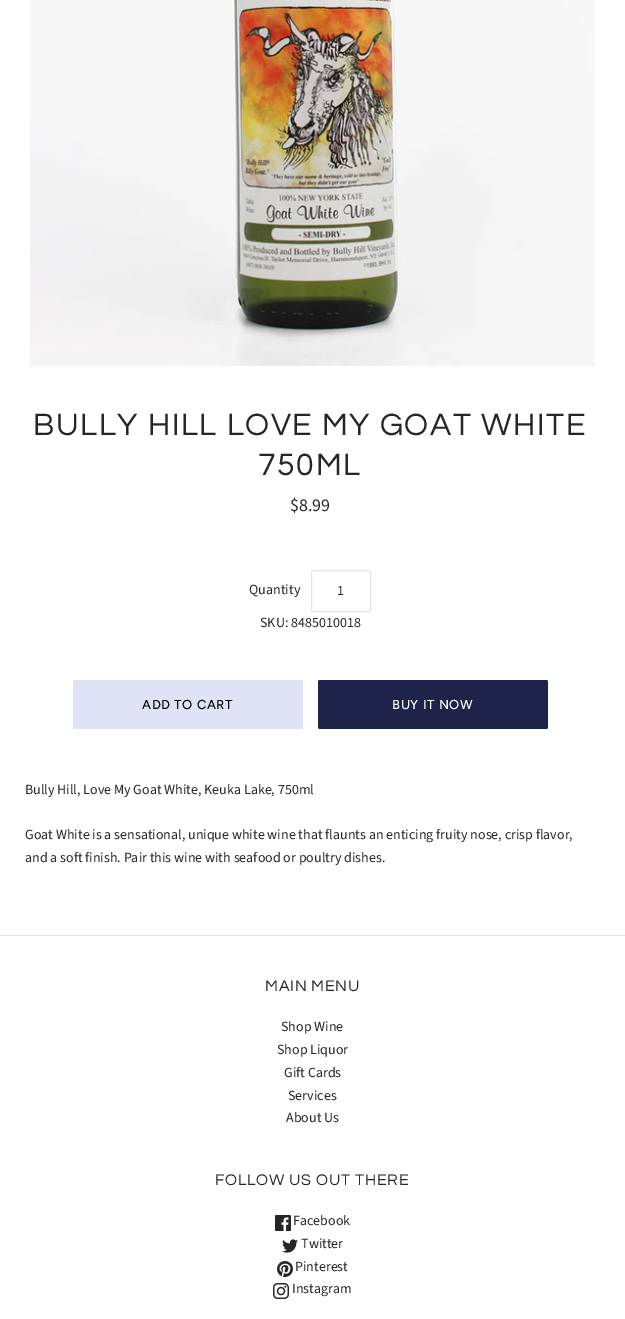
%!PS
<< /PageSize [625 1319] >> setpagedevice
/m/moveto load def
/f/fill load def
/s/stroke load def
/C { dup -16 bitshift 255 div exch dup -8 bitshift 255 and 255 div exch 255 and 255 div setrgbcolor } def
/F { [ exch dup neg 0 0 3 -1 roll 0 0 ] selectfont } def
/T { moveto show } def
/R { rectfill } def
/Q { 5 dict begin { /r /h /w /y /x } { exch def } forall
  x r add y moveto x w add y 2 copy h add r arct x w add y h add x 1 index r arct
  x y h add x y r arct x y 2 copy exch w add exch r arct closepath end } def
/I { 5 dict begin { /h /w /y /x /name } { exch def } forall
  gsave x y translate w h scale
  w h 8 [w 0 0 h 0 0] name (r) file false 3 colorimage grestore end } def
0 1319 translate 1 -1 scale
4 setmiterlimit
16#FFFFFF C
0 0 625 1319 R
(1.rgb) 30 0 565 366 I
/Questrial-Regular 32 F
16#262626 C
33 435 m 1.6 0 (BULLY HILL LOVE MY GOAT WHITE) ashow
258 475 m 1.6 0 (750ML) ashow
/SourceSansPro-Regular 18 F
($8.99) 290 511 T
/SourceSansPro-Regular 14 F
(Quantity) 249 594 T
16#E4E4E4 C
311.5 570.5 59 41 1.5 Q s
16#262626 C
(1) 337 595 T
(SKU: 8485010018) 260 627 T
16#E0E3F5 C
73 680 230 49 2 Q f
/Figtree-Medium 13 F
16#080808 C
142 709 m .6 0 (ADD TO CART) ashow
16#1D2349 C
318 680 230 49 2 Q f
16#FFFFFF C
392 709 m .6 0 (BUY IT NOW) ashow
/SourceSansPro-Regular 14 F
16#262626 C
(Bully Hill, Love My Goat White, Keuka Lake, 750ml) 25 794 T
(Goat White is a sensational, unique white wine that flaunts an enticing fruity nose, crisp flavor,) 25 839 T
(and a soft finish. Pair this wine with seafood or poultry dishes.) 25 862 T
16#E4E4E4 C
0 935 625 1 R
/Questrial-Regular 16 F
16#262626 C
265 991 m .75 0 (MAIN MENU) ashow
/SourceSansPro-Regular 14 F
(Shop Wine) 281 1031 T
(Shop Liquor) 277 1054 T
(Gift Cards) 284 1077 T
(Services) 288 1100 T
(About Us) 286 1122 T
/Questrial-Regular 16 F
215 1185 m .75 0 (FOLLOW US OUT THERE) ashow
(2.rgb) 275 1215 16 16 I
/SourceSansPro-Regular 14 F
(Facebook) 293 1225 T
(3.rgb) 282 1239 16 14 I
(Twitter) 301 1248 T
(4.rgb) 277 1261 16 16 I
(Pinterest) 295 1271 T
(5.rgb) 273 1283 16 16 I
(Instagram) 292 1293 T
showpage
